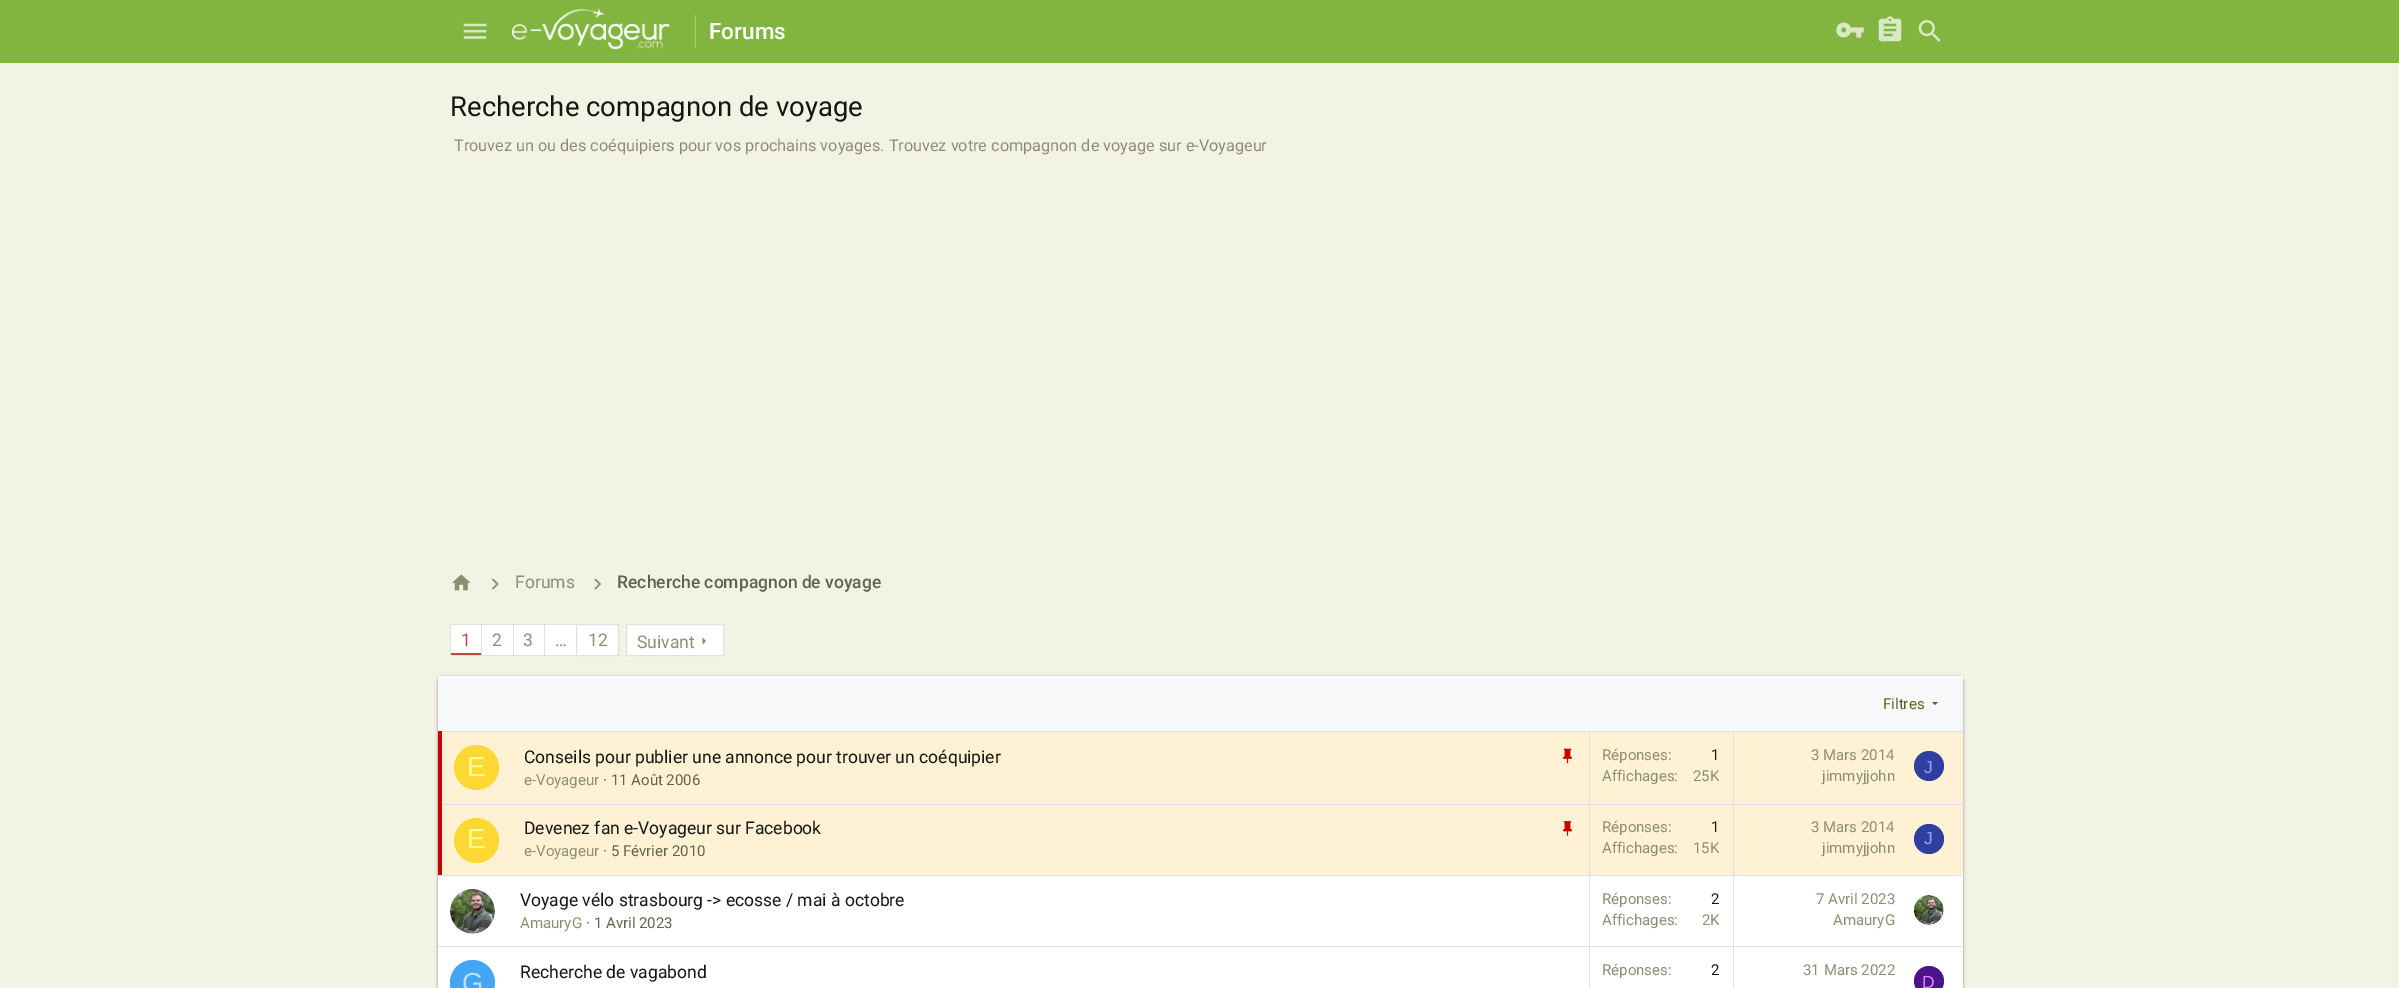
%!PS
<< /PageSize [2399 988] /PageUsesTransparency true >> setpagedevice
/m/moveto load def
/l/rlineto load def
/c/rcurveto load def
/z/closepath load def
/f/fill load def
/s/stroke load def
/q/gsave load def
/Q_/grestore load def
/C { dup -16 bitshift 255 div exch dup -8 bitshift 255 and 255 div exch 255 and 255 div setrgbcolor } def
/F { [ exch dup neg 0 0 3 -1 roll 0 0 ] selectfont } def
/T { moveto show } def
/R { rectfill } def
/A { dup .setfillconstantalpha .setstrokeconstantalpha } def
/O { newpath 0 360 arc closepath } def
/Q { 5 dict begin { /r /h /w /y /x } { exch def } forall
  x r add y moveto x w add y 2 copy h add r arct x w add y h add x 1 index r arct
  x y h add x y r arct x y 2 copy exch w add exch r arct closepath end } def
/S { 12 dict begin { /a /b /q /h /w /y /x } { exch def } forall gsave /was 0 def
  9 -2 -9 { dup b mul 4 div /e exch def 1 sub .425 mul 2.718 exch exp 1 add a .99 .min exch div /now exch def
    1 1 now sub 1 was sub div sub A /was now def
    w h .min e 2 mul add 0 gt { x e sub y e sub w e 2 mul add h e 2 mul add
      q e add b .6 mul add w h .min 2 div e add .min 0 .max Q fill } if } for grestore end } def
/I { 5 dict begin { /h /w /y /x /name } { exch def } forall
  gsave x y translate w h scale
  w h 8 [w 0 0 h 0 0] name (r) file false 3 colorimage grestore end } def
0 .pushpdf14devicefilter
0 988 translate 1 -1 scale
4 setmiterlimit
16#F2F2E5 C
0 0 2399 988 R
16#82B440 C
0 0 2399 63 R
(1.rgb) 463 23 24 16 I
(2.rgb) 512 7 159 43 I
16#A8CB79 C
695 15 1 33 R
/Roboto-Medium 22.5 F
16#FFFFFF C
(Forums) 709 39 T
(3.rgb) 1836 22 28 16 I
(4.rgb) 1878 16 24 26 I
(5.rgb) 1918 20 23 22 I
/Roboto-Regular 27.5 F
16#161611 C
(Recherche compagnon de voyage) 450 116 T
/Roboto-Regular 16.25 F
16#8D8D71 C
(Trouvez un ou des coéquipiers pour vos prochains voyages. Trouvez votre compagnon de voyage sur e-Voyageur) 454 151 T
(6.rgb) 452 574 19 17 I
(7.rgb) 491 578 8 12 I
/Roboto-Regular 17.5 F
(Forums) 515 588 T
(8.rgb) 594 578 8 12 I
/Roboto-Medium 17.5 F
16#62624F C
(Recherche compagnon de voyage) 617 588 T
16#FFFFFF C
451 625 30 28 R
16#C3423F C
451 653 30 2 R
16#E0E0E0 C
450 624 126 1 R
450 655 126 1 R
450 624 1 32 R
/Roboto-Regular 17.5 F
16#C3423F C
(1) 461 646 T
16#FFFFFF C
482 625 31 30 R
16#E0E0E0 C
481 624 1 32 R
16#8D8D71 C
(2) 492 646 T
16#FFFFFF C
514 625 30 30 R
16#E0E0E0 C
513 624 1 32 R
16#8D8D71 C
(3) 523 646 T
16#FFFFFF C
545 625 31 30 R
16#E0E0E0 C
544 624 1 32 R
16#8D8D71 C
(…) 555 646 T
16#FFFFFF C
576.5 624.5 m 42 0 l 0 31 l -42 0 l z q f Q_
16#E0E0E0 C
s
16#8D8D71 C
(12) 588 646 T
16#FFFFFF C
626.5 624.5 m 97 0 l 0 31 l -97 0 l z q f Q_
16#E0E0E0 C
s
16#8D8D71 C
(Suivant) 637 648 T
702.5 644.5 m 3.5 -3.5 l -3.5 -3.5 l z f
16#000000 C
438 678 1525 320 4 2 .2 S
438 679 1525 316 4 1 .12 S
438 676 1525 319 4 1 .14 S
16#FFFFFF C
438 871 1525 117 R
16#F7F8F9 C
438 676 1525 55 R
/Roboto-Regular 15 F
16#58641D C
(Filtres) 1883 709 T
1932 702 m 3 3 l 3 -3 l z f
16#FEF1D4 C
442 732 1521 72 R
16#E0E0E0 C
438 731 1525 1 R
16#CA0000 C
438 731 4 73 R
16#FDD835 C
476.5 767.5 22.5 O f
/LiberationSans-Regular 27.5 F
16#FFFF8D C
(E) 467 776 T
/Roboto-Regular 17.5 F
16#161611 C
(Conseils pour publier une annonce pour trouver un coéquipier) 524 763 T
(9.rgb) 1563 748 9 16 I
/Roboto-Regular 15 F
16#8D8D71 C
(e-Voyageur) 524 785 T
16#62624F C
(· 11 Août 2006) 603 785 T
16#E0E0E0 C
1733 731 1 73 R
1589 731 1 73 R
16#8D8D71 C
(Réponses:) 1602 760 T
16#161611 C
(1) 1711 760 T
16#8D8D71 C
(Affichages:) 1602 781 T
(25K) 1693 781 T
(3 Mars 2014) 1811 760 T
(jimmyjjohn) 1822 781 T
16#303F9F C
1929 766 15 O f
/LiberationSans-Regular 17.5 F
16#8C9EFF C
(J) 1924 773 T
16#FEF1D4 C
438 804 m 1525 0 l 0 67 l 0 2 -2 4 -4 4 c -1517 0 l -2 0 -4 -2 -4 -4 c z f
16#E0E0E0 C
438 804 1525 1 R
16#CA0000 C
438 804 4 71 R
16#FDD835 C
476.5 840.5 22.5 O f
/LiberationSans-Regular 27.5 F
16#FFFF8D C
(E) 467 848 T
/Roboto-Regular 17.5 F
16#161611 C
(Devenez fan e-Voyageur sur Facebook) 524 834 T
(10.rgb) 1563 821 9 15 I
/Roboto-Regular 15 F
16#8D8D71 C
(e-Voyageur) 524 856 T
16#62624F C
(· 5 Février 2010) 603 856 T
16#E0E0E0 C
1733 804 1 71 R
1589 804 1 71 R
16#8D8D71 C
(Réponses:) 1602 832 T
16#161611 C
(1) 1711 832 T
16#8D8D71 C
(Affichages:) 1602 853 T
(15K) 1693 853 T
(3 Mars 2014) 1811 832 T
(jimmyjjohn) 1822 853 T
16#303F9F C
1929 839 15 O f
/LiberationSans-Regular 17.5 F
16#8C9EFF C
(J) 1924 844 T
16#E0E0E0 C
438 875 1525 1 R
(11.rgb) 450 889 45 45 I
/Roboto-Regular 17.5 F
16#161611 C
(Voyage vélo strasbourg -> ecosse / mai à octobre) 520 906 T
/Roboto-Regular 15 F
16#8D8D71 C
(AmauryG) 520 928 T
16#62624F C
(· 1 Avril 2023) 586 928 T
16#E0E0E0 C
1733 875 1 73 R
1589 875 1 73 R
16#8D8D71 C
(Réponses:) 1602 904 T
16#161611 C
(2) 1711 904 T
16#8D8D71 C
(Affichages:) 1602 925 T
(2K) 1702 925 T
(7 Avril 2023) 1816 904 T
(AmauryG) 1833 925 T
(12.rgb) 1914 895 30 30 I
16#E0E0E0 C
438 946 1525 1 R
/Roboto-Regular 17.5 F
16#161611 C
(Recherche de vagabond) 520 978 T
16#E0E0E0 C
1733 946 1 42 R
1589 946 1 42 R
/Roboto-Regular 15 F
16#8D8D71 C
(Réponses:) 1602 975 T
16#161611 C
(2) 1711 975 T
16#8D8D71 C
(31 Mars 2022) 1803 975 T
16#42A5F5 C
472.5 982.5 22.5 O f
/LiberationSans-Regular 27.5 F
16#BBDEFB C
(G) 462 992 T
16#4A148C C
1929 981 15 O f
/LiberationSans-Regular 17.5 F
16#EA80FC C
(D) 1922 988 T
.poppdf14devicefilter showpage
